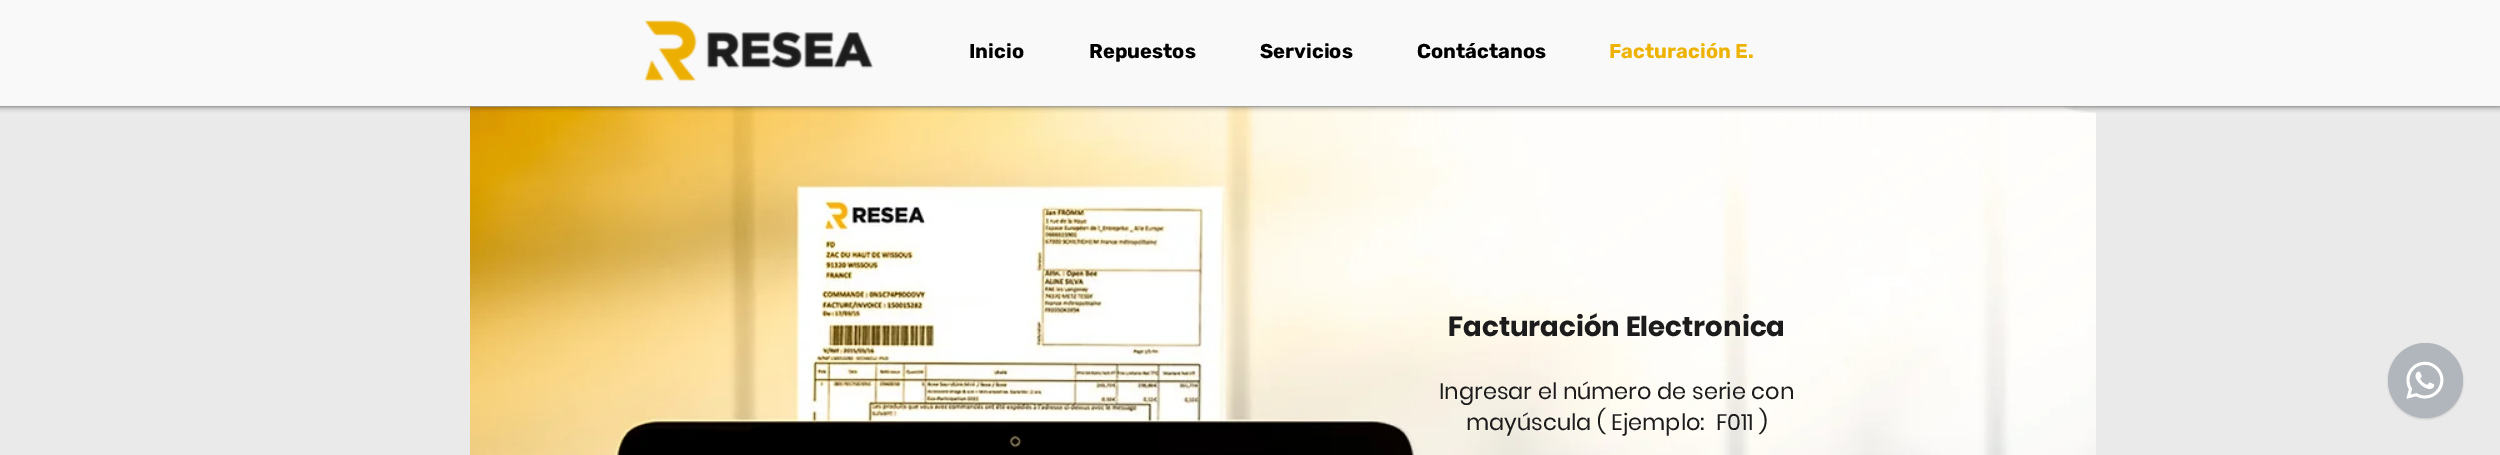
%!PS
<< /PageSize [2500 455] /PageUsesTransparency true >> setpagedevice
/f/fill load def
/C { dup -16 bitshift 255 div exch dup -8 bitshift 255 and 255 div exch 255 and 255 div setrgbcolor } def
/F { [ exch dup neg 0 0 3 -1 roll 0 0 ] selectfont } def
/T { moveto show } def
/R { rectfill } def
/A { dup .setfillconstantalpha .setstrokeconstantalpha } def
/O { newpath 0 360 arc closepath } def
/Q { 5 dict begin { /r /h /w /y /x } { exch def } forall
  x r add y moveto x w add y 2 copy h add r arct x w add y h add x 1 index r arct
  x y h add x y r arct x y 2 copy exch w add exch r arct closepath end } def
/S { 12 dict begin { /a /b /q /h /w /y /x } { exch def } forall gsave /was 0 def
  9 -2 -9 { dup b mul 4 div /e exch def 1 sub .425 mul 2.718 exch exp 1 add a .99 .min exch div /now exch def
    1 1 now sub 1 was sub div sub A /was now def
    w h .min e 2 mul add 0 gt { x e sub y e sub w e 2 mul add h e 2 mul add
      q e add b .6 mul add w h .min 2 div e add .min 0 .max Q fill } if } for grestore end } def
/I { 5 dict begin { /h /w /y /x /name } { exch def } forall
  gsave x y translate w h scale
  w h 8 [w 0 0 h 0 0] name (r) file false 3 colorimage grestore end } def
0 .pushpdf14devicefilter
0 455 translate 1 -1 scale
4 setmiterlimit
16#EAEAEA C
0 0 2500 455 R
(2.rgb) 470 106 1626 349 I
16#000000 C
0 0 2500 106 0 3 .7 S
16#F9F9F9 C
0 0 2500 106 R
(1.rgb) 644 20 229 62 I
/Rubik-Bold 20 F
16#000000 C
(Inicio) 969 58 T
(Repuestos) 1089 58 T
(Servicios) 1260 58 T
(Contáctanos) 1417 58 T
16#EEB202 C
(Facturación E.) 1609 58 T
/Poppins-Bold 27.5 F
16#1C1C1C C
(Facturación Electronica) 1448 336 T
/Poppins-Regular 22.5 F
(Ingresar el número de serie con) 1439 399 T
(mayúscula \( Ejemplo:  F011 \)) 1466 430 T
16#000000 C
2388 344 75 75 37.5 1 .15 S
16#B0B6BB C
2425.5 380.5 37.5 O f
(3.rgb) 2406 361 38 38 I
.poppdf14devicefilter showpage
